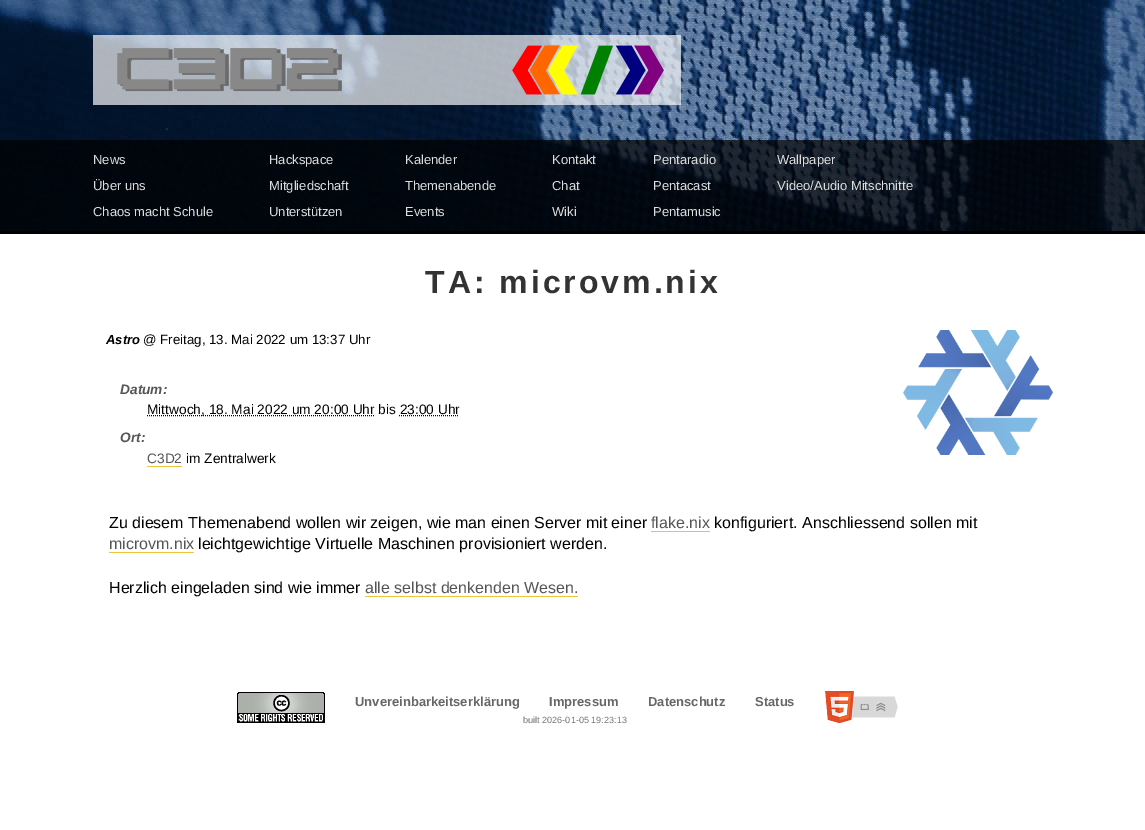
%!PS
<< /PageSize [1145 830] /PageUsesTransparency true >> setpagedevice
/m/moveto load def
/l/rlineto load def
/s/stroke load def
/C { dup -16 bitshift 255 div exch dup -8 bitshift 255 and 255 div exch 255 and 255 div setrgbcolor } def
/F { [ exch dup neg 0 0 3 -1 roll 0 0 ] selectfont } def
/T { moveto show } def
/R { rectfill } def
/A { dup .setfillconstantalpha .setstrokeconstantalpha } def
/I { 5 dict begin { /h /w /y /x /name } { exch def } forall
  gsave x y translate w h scale
  w h 8 [w 0 0 h 0 0] name (r) file false 3 colorimage grestore end } def
0 .pushpdf14devicefilter
0 830 translate 1 -1 scale
4 setmiterlimit
16#FFFFFF C
0 0 1145 830 R
(1.rgb) 0 0 1145 231 I
(2.rgb) 93 35 588 70 I
0.7 A
16#000000 C
0 140 1145 91 R
1 A
0 231 1145 3 R
/LiberationSans-Regular 13 F
16#DDDDDD C
(News) 93 164 T
(Über uns) 93 190 T
(Chaos macht Schule) 93 216 T
(Hackspace) 269 164 T
(Mitgliedschaft) 269 190 T
(Unterstützen) 269 216 T
(Kalender) 405 164 T
(Themenabende) 405 190 T
(Events) 405 216 T
(Kontakt) 552 164 T
(Chat) 552 190 T
(Wiki) 552 216 T
(Pentaradio) 653 164 T
(Pentacast) 653 190 T
(Pentamusic) 653 216 T
(Wallpaper) 777 164 T
(Video/Audio Mitschnitte) 777 190 T
/LiberationSans-Bold 32 F
16#333333 C
425 293 m 3 0 (TA: microvm.nix) ashow
/LiberationSans-BoldItalic 13 F
16#000000 C
(Astro) 106 344 T
/LiberationSans-Regular 13.3 F
(@ Freitag, 13. Mai 2022 um 13:37 Uhr) 143 344 T
(3.rgb) 903 330 150 125 I
/LiberationSans-BoldItalic 13.7 F
16#555555 C
(Datum:) 120 394 T
16#000000 C
[1 1] 0 setdash
147 415.5 m 227 0 l s
/LiberationSans-Regular 13.7 F
(Mittwoch, 18. Mai 2022 um 20:00 Uhr bis 23:00 Uhr) 147 414 T
399 415.5 m 60 0 l s
/LiberationSans-BoldItalic 13.7 F
16#555555 C
(Ort:) 120 442 T
/LiberationSans-Regular 13.7 F
(C3D2) 147 463 T
16#EBC63C C
147 466 35 1 R
16#000000 C
(im Zentralwerk) 186 463 T
/LiberationSans-Regular 16 F
(Zu diesem Themenabend wollen wir zeigen, wie man einen Server mit einer) 109 528 T
16#555555 C
(flake.nix) 651 528 T
16#EBC63C C
651 531 59 1 R
16#000000 C
(konfiguriert. Anschliessend sollen mit) 714 528 T
16#555555 C
(microvm.nix) 109 549 T
16#EBC63C C
109 552 85 1 R
16#000000 C
(leichtgewichtige Virtuelle Maschinen provisioniert werden.) 198 549 T
(Herzlich eingeladen sind wie immer) 109 593 T
16#555555 C
(alle selbst denkenden Wesen.) 365 593 T
16#EBC63C C
365 596 213 1 R
(4.rgb) 237 692 88 31 I
/LiberationSans-Bold 13 F
16#676767 C
(Unvereinbarkeitserklärung) 355 706 T
(Impressum) 549 706 T
(Datenschutz) 648 706 T
(Status) 755 706 T
/LiberationSans-Regular 9.1 F
16#777777 C
(built 2026-01-05 19:23:13) 523 723 T
(5.rgb) 825 691 73 32 I
.poppdf14devicefilter showpage
